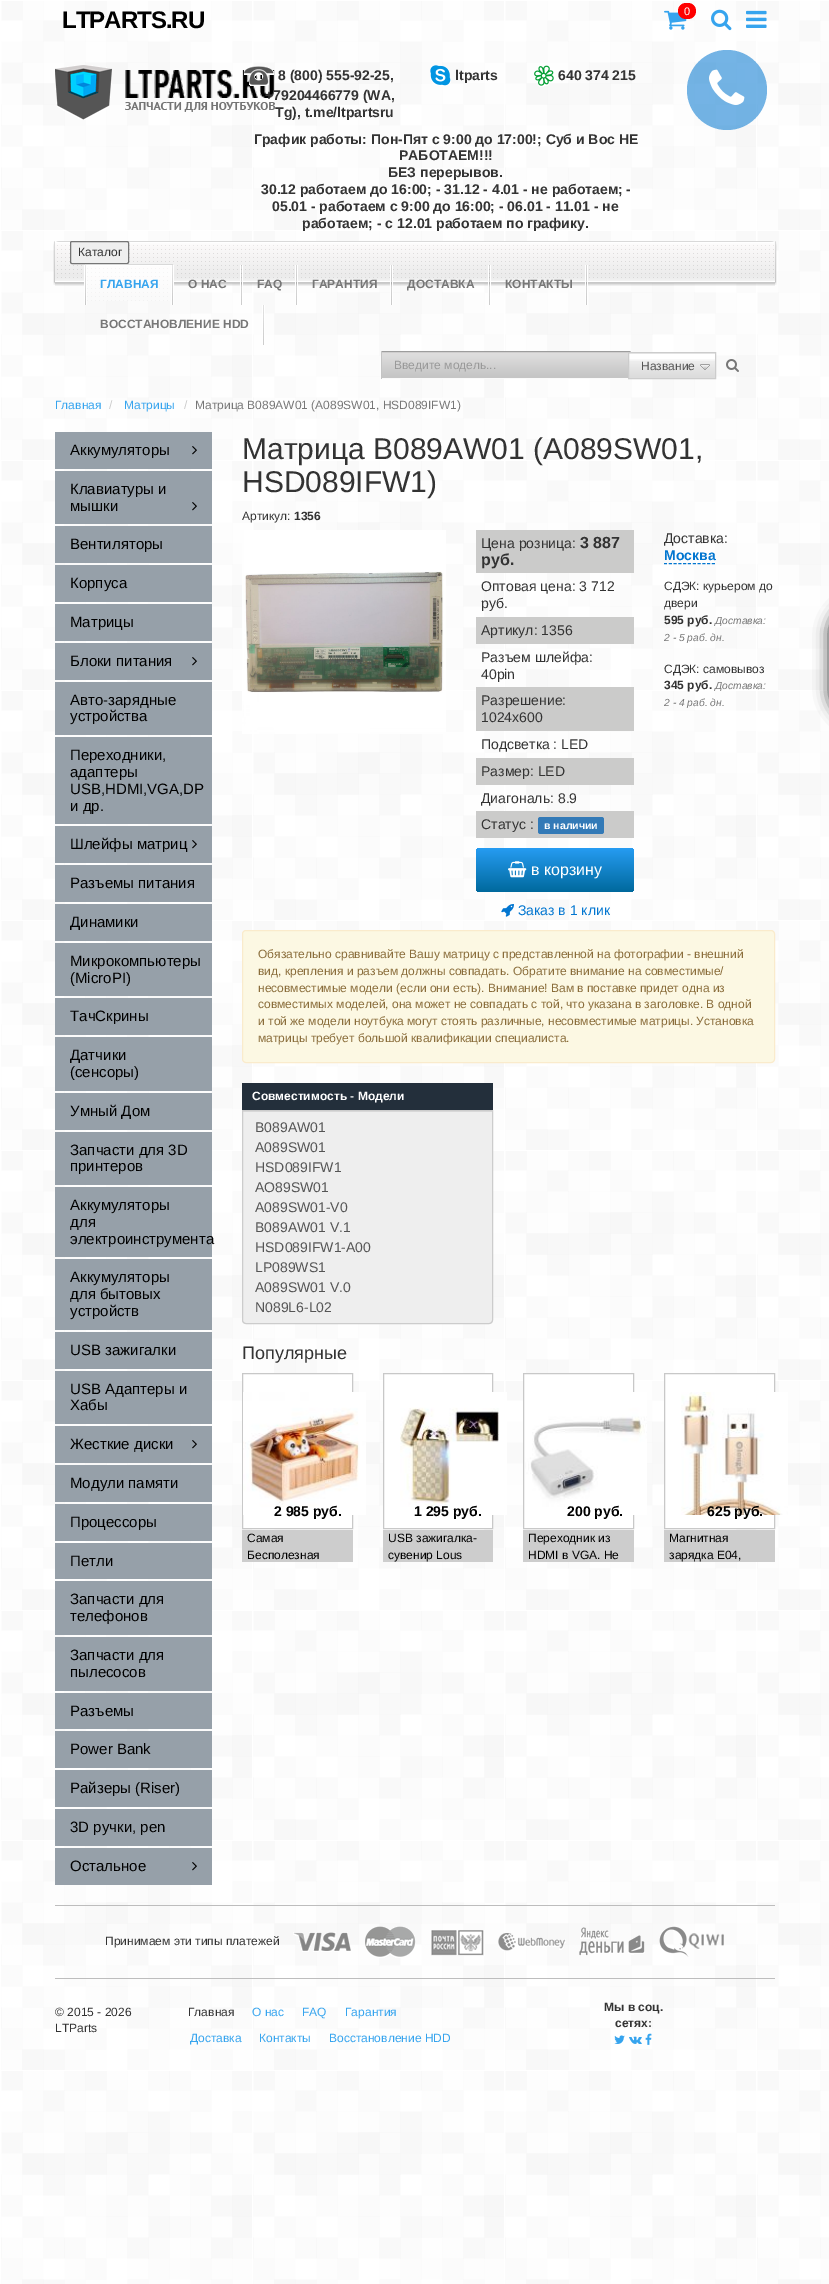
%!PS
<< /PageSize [829 2284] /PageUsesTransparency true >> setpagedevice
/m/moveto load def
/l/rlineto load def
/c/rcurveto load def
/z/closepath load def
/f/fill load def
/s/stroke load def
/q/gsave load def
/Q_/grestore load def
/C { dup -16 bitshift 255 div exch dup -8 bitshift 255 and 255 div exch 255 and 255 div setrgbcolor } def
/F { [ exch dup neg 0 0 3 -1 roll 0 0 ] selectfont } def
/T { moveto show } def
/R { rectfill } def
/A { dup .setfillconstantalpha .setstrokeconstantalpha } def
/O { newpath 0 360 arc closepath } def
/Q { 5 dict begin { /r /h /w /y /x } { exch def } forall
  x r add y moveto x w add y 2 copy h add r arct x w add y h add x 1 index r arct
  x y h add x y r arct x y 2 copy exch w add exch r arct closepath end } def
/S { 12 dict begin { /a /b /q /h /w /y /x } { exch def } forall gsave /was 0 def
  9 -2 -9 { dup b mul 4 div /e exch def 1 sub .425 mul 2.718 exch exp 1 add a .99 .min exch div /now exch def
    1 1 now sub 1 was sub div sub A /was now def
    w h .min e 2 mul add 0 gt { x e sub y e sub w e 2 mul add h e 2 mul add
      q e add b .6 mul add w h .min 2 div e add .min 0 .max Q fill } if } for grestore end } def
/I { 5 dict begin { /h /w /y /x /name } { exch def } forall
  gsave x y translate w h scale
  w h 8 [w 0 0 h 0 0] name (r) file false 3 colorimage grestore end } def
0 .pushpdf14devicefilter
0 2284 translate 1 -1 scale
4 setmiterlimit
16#FFFFFF C
0 0 829 2284 R
(1.rgb) 1 1 828 2283 I
/LiberationSans-Bold 24 F
16#000000 C
62 28 m -1 0 (LTPARTS.RU) ashow
(2.rgb) 664 10 23 20 I
16#FF0000 C
678 3 18 16 8 Q f
/LiberationSans-Regular 11 F
16#FFFFFF C
(0) 684 15 T
(3.rgb) 711 9 21 22 I
(4.rgb) 746 10 21 18 I
(5.rgb) 55 65 221 55 I
(6.rgb) 244 66 30 20 I
/LiberationSans-Bold 14 F
16#333333 C
(8 \(800\) 555-92-25,) 278 80 T
(+79204466779 \(WA,) 265 100 T
(Tg\), t.me/ltpartsru) 275 117 T
(7.rgb) 430 65 21 21 I
(ltparts) 455 80 T
(8.rgb) 534 65 20 22 I
(640 374 215) 558 80 T
(График работы: Пон-Пят с 9:00 до 17:00!; Суб и Вос НЕ) 254 144 T
(РАБОТАЕМ!!!) 399 160 T
(БЕЗ перерывов.) 388 177 T
(30.12 работаем до 16:00; - 31.12 - 4.01 - не работаем; -) 261 194 T
(05.01 - работаем с 9:00 до 16:00; - 06.01 - 11.01 - не) 272 211 T
(работаем; - с 12.01 работаем по графику.) 302 228 T
0.55 A
16#0276D0 C
727 90 40 O f
1 A
(9.rgb) 709 69 36 36 I
(10.rgb) 55 241 720 45 I
(11.rgb) 53 241 2 44 I
16#EFEFEF C
70.5 241.5 58 22 1.5 Q q f Q_
16#767676 C
s
/LiberationSans-Regular 12 F
16#333333 C
(Каталог) 78 256 T
(12.rgb) 85 264 88 37 I
(13.rgb) 84 265 3 40 I
/LiberationSans-Bold 12 F
16#36A4EE C
(ГЛАВНАЯ) 100 288 T
(14.rgb) 171 265 3 40 I
16#777777 C
(О НАС) 188 288 T
(15.rgb) 240 265 3 40 I
(FAQ) 257 288 T
(16.rgb) 295 265 3 40 I
(ГАРАНТИЯ) 312 288 T
(17.rgb) 390 265 3 40 I
(ДОСТАВКА) 407 288 T
(15.rgb) 488 265 3 40 I
(КОНТАКТЫ) 505 288 T
(18.rgb) 585 265 3 40 I
(ВОССТАНОВЛЕНИЕ HDD) 100 328 T
(19.rgb) 262 305 3 40 I
(20.rgb) 382 353 246 25 I
16#CECDCD C
382 352 248 1 R
16#9D9D9D C
381 351 250 1 R
16#C2C1C1 C
630 351 1 1 R
16#FAFAFA C
381 378 229 1 R
16#C4C4C4 C
381 351 1 28 R
/LiberationSans-Regular 12 F
16#999999 C
(Введите модель...) 394 369 T
16#FFFFFF C
629 354 86 5 R
(21.rgb) 629 359 86 19 I
16#ECECEC C
629 353 86 1 R
16#CCCCCC C
628.5 352.5 87 26 rectstroke
16#555555 C
(Название) 641 370 T
(22.rgb) 726 359 13 13 I
(23.rgb) 775 241 2 44 I
16#36A4EE C
(Главная) 55 409 T
16#CCCCCC C
(/) 109 409 T
16#36A4EE C
(Матрицы) 124 409 T
16#CCCCCC C
(/) 184 409 T
16#777777 C
(Матрица B089AW01 \(A089SW01, HSD089IFW1\)) 195 409 T
16#96A0A9 C
55 432 157 37 R
/LiberationSans-Regular 15 F
16#000000 C
(Аккумуляторы) 70 455 T
(24.rgb) 192 446 5 9 I
16#96A0A9 C
55 471 157 53 R
16#000000 C
(Клавиатуры и) 70 494 T
(мышки) 70 511 T
(24.rgb) 192 502 5 9 I
16#96A0A9 C
55 526 157 37 R
16#000000 C
(Вентиляторы) 70 549 T
16#96A0A9 C
55 565 157 37 R
16#000000 C
(Корпуса) 70 588 T
16#96A0A9 C
55 604 157 37 R
16#000000 C
(Матрицы) 70 627 T
16#96A0A9 C
55 643 157 37 R
16#000000 C
(Блоки питания) 70 666 T
(24.rgb) 192 657 5 9 I
16#96A0A9 C
55 682 157 53 R
16#000000 C
(Авто-зарядные) 70 705 T
(устройства) 70 721 T
16#96A0A9 C
55 737 157 87 R
16#000000 C
(Переходники,) 70 760 T
(адаптеры) 70 777 T
(USB,HDMI,VGA,DP) 70 794 T
(и др.) 70 811 T
16#96A0A9 C
55 826 157 37 R
16#000000 C
(Шлейфы матриц) 70 849 T
(24.rgb) 192 840 5 9 I
16#96A0A9 C
55 865 157 37 R
16#000000 C
(Разъемы питания) 70 888 T
16#96A0A9 C
55 904 157 37 R
16#000000 C
(Динамики) 70 927 T
16#96A0A9 C
55 943 157 53 R
16#000000 C
(Микрокомпьютеры) 70 966 T
(\(MicroPI\)) 70 983 T
16#96A0A9 C
55 998 157 37 R
16#000000 C
(ТачСкрины) 70 1021 T
16#96A0A9 C
55 1037 157 54 R
16#000000 C
(Датчики) 70 1060 T
(\(сенсоры\)) 70 1077 T
16#96A0A9 C
55 1093 157 37 R
16#000000 C
(Умный Дом) 70 1116 T
16#96A0A9 C
55 1132 157 53 R
16#000000 C
(Запчасти для 3D) 70 1155 T
(принтеров) 70 1171 T
16#96A0A9 C
55 1187 157 70 R
16#000000 C
(Аккумуляторы) 70 1210 T
(для) 70 1227 T
(электроинструмента) 70 1244 T
16#96A0A9 C
55 1259 157 71 R
16#000000 C
(Аккумуляторы) 70 1282 T
(для бытовых) 70 1299 T
(устройств) 70 1316 T
16#96A0A9 C
55 1332 157 37 R
16#000000 C
(USB зажигалки) 70 1355 T
16#96A0A9 C
55 1371 157 53 R
16#000000 C
(USB Адаптеры и) 70 1394 T
(Хабы) 70 1410 T
16#96A0A9 C
55 1426 157 37 R
16#000000 C
(Жесткие диски) 70 1449 T
(24.rgb) 192 1440 5 9 I
16#96A0A9 C
55 1465 157 37 R
16#000000 C
(Модули памяти) 70 1488 T
16#96A0A9 C
55 1504 157 37 R
16#000000 C
(Процессоры) 70 1527 T
16#96A0A9 C
55 1543 157 36 R
16#000000 C
(Петли) 70 1566 T
16#96A0A9 C
55 1581 157 54 R
16#000000 C
(Запчасти для) 70 1604 T
(телефонов) 70 1621 T
16#96A0A9 C
55 1637 157 54 R
16#000000 C
(Запчасти для) 70 1660 T
(пылесосов) 70 1677 T
16#96A0A9 C
55 1693 157 36 R
16#000000 C
(Разъемы) 70 1716 T
16#96A0A9 C
55 1731 157 37 R
16#000000 C
(Power Bank) 70 1754 T
16#96A0A9 C
55 1770 157 37 R
16#000000 C
(Райзеры \(Riser\)) 70 1793 T
16#96A0A9 C
55 1809 157 37 R
16#000000 C
(3D ручки, pen) 70 1832 T
16#96A0A9 C
55 1848 157 37 R
16#000000 C
(Остальное) 70 1871 T
(24.rgb) 192 1862 5 9 I
/LiberationSans-Regular 30 F
16#333333 C
(Матрица B089AW01 \(A089SW01,) 242 459 T
(HSD089IFW1\)) 242 492 T
/LiberationSans-Regular 12 F
(Артикул:) 242 520 T
/LiberationSans-Bold 12 F
(1356) 294 520 T
(25.rgb) 242 530 204 204 I
16#CBCBCA C
476 530 158 43 R
/LiberationSans-Regular 14 F
16#333333 C
(Цена розница:) 481 548 T
/LiberationSans-Bold 16 F
(3 887) 580 548 T
(руб.) 481 565 T
/LiberationSans-Regular 14 F
(Оптовая цена: 3 712) 481 591 T
(руб.) 481 608 T
16#CBCBCA C
476 617 158 27 R
16#333333 C
(Артикул: 1356) 481 635 T
(Разъем шлейфа:) 481 662 T
(40pin) 481 679 T
16#CBCBCA C
476 687 158 44 R
16#333333 C
(Разрешение:) 481 705 T
(1024x600) 481 722 T
(Подсветка : LED) 481 749 T
16#CBCBCA C
476 758 158 27 R
16#333333 C
(Размер: LED) 481 776 T
(Диагональ: 8.9) 481 803 T
16#CBCBCA C
476 811 158 27 R
16#333333 C
(Статус :) 481 829 T
16#337AB7 C
538 817 66 17 2.5 Q f
/LiberationSans-Bold 10.5 F
16#FFFFFF C
(в наличии) 544 829 T
q 476 848 158 44 4 Q clip newpath
<< /ShadingType 2 /ColorSpace /DeviceRGB /Coords [555 848 555 892] /Extend [true true] /Function << /FunctionType 2 /Domain [0 1] /C0 [.149 .612 .949] /C1 [0 .412 .616] /N 1 >> >> shfill Q_
(26.rgb) 508 861 19 17 I
/LiberationSans-Regular 16 F
(в корзину) 531 875 T
(27.rgb) 501 904 13 13 I
/LiberationSans-Regular 14 F
16#0276D0 C
(Заказ в 1 клик) 518 915 T
16#333333 C
(Доставка:) 664 543 T
/LiberationSans-Bold 14 F
16#0276D0 C
(Москва) 664 560 T
[3 1.8] 0 setdash
664 563.5 m 51 0 l s
/LiberationSans-Regular 12 F
16#333333 C
(СДЭК: курьером до) 664 590 T
(двери) 664 607 T
/LiberationSans-Bold 12 F
(595 руб.) 664 624 T
/LiberationSans-Italic 10.25 F
16#777777 C
(Доставка:) 715 624 T
(2 - 5 раб. дн.) 664 641 T
/LiberationSans-Regular 12 F
16#333333 C
(СДЭК: самовывоз) 664 673 T
/LiberationSans-Bold 12 F
(345 руб.) 664 689 T
/LiberationSans-Italic 10.25 F
16#777777 C
(Доставка:) 715 689 T
(2 - 4 раб. дн.) 664 706 T
16#FCF8E3 C
242.5 930.5 532 132 3.5 Q q f Q_
16#FAEBCC C
[] 0 setdash
s
/LiberationSans-Regular 12 F
16#8A6D3B C
(Обязательно сравнивайте Вашу матрицу с представленной на фотографии - внешний) 258 958 T
(вид, крепления и разъем должны совпадать. Обратите внимание на совместимые/) 258 975 T
(несовместимые модели \(если они есть\). Внимание! Вам в поставке придет одна из) 258 992 T
(совместимых моделей, она может не совпадать с той, что указана в заголовке. В одной) 258 1008 T
(и той же модели ноутбука могут стоять различные, несовместимые матрицы. Установка) 258 1025 T
(матрицы требует большой квалификации специалиста.) 258 1042 T
16#232F3B C
242 1083 251 27 R
/LiberationSans-Bold 12 F
16#FFFFFF C
(Совместимость - Модели) 252 1100 T
16#EEEEEE C
242 1110 m 251 0 l 0 210 l 0 2 -2 4 -4 4 c -243 0 l -2 0 -4 -2 -4 -4 c z f
16#DCDCDC C
243 1111 249 1 R
16#CCCCCC C
242.5 1110.5 m 250 0 l 0 209.5 l 0 2 -1.5 3.5 -3.5 3.5 c -243 0 l -2 0 -3.5 -1.5 -3.5 -3.5 c z s
/LiberationSans-Regular 14 F
16#555555 C
(B089AW01) 255 1132 T
(A089SW01) 255 1152 T
(HSD089IFW1) 255 1172 T
(AO89SW01) 255 1192 T
(A089SW01-V0) 255 1212 T
(B089AW01 V.1) 255 1232 T
(HSD089IFW1-A00) 255 1252 T
(LP089WS1) 255 1272 T
(A089SW01 V.0) 255 1292 T
(N089L6-L02) 255 1312 T
/LiberationSans-Regular 18 F
16#333333 C
(Популярные) 242 1359 T
16#FFFFFF C
242.5 1373.5 m 110 0 l 0 155 l -110 0 l z q f Q_
16#C8C8C8 C
s
(28.rgb) 243 1392 123 123 I
/LiberationSans-Bold 14 F
16#000000 C
(2 985 руб.) 274 1516 T
16#CDCDCD C
242 1530 111 32 R
/LiberationSans-Regular 12 F
16#000000 C
(Самая) 247 1542 T
(Бесполезная) 247 1559 T
16#FFFFFF C
383.5 1373.5 m 109 0 l 0 155 l -109 0 l z q f Q_
16#C8C8C8 C
s
(29.rgb) 400 1392 107 123 I
/LiberationSans-Bold 14 F
16#000000 C
(1 295 руб.) 414 1516 T
16#CDCDCD C
383 1530 110 32 R
/LiberationSans-Regular 12 F
16#000000 C
(USB зажигалка-) 388 1542 T
(сувенир Lous) 388 1559 T
16#FFFFFF C
523.5 1373.5 m 110 0 l 0 155 l -110 0 l z q f Q_
16#C8C8C8 C
s
(30.rgb) 525 1392 122 123 I
/LiberationSans-Bold 14 F
16#000000 C
(200 руб.) 567 1516 T
16#CDCDCD C
523 1530 111 32 R
/LiberationSans-Regular 12 F
16#000000 C
(Переходник из) 528 1542 T
(HDMI в VGA. Не) 528 1559 T
16#FFFFFF C
664.5 1373.5 m 110 0 l 0 155 l -110 0 l z q f Q_
16#C8C8C8 C
s
(31.rgb) 681 1392 107 123 I
/LiberationSans-Bold 14 F
16#000000 C
(625 руб.) 707 1516 T
16#CDCDCD C
664 1530 111 32 R
/LiberationSans-Regular 12 F
16#000000 C
(Магнитная) 669 1542 T
(зарядка E04,) 669 1559 T
829 602 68 120 45 7.5 .75 S
16#BDBDBD C
55 1905 720 1 R
55 1978 720 1 R
16#333333 C
(Принимаем эти типы платежей) 105 1945 T
(32.rgb) 293 1932 58 20 I
(33.rgb) 365 1926 51 32 I
(34.rgb) 431 1930 54 26 I
(35.rgb) 498 1933 68 18 I
(36.rgb) 579 1927 66 29 I
(37.rgb) 659 1926 65 31 I
(© 2015 - 2026) 55 2016 T
(LTParts) 55 2032 T
(Главная) 188 2016 T
16#36A4EE C
(О нас) 252 2016 T
(FAQ) 302 2016 T
(Гарантия) 345 2016 T
(Доставка) 190 2042 T
(Контакты) 259 2042 T
(Восстановление HDD) 329 2042 T
/LiberationSans-Bold 12 F
16#333333 C
(Мы в cоц.) 604 2011 T
(сетях:) 615 2027 T
(38.rgb) 614 2035 11 9 I
(39.rgb) 629 2036 13 8 I
(40.rgb) 645 2033 7 12 I
.poppdf14devicefilter showpage
